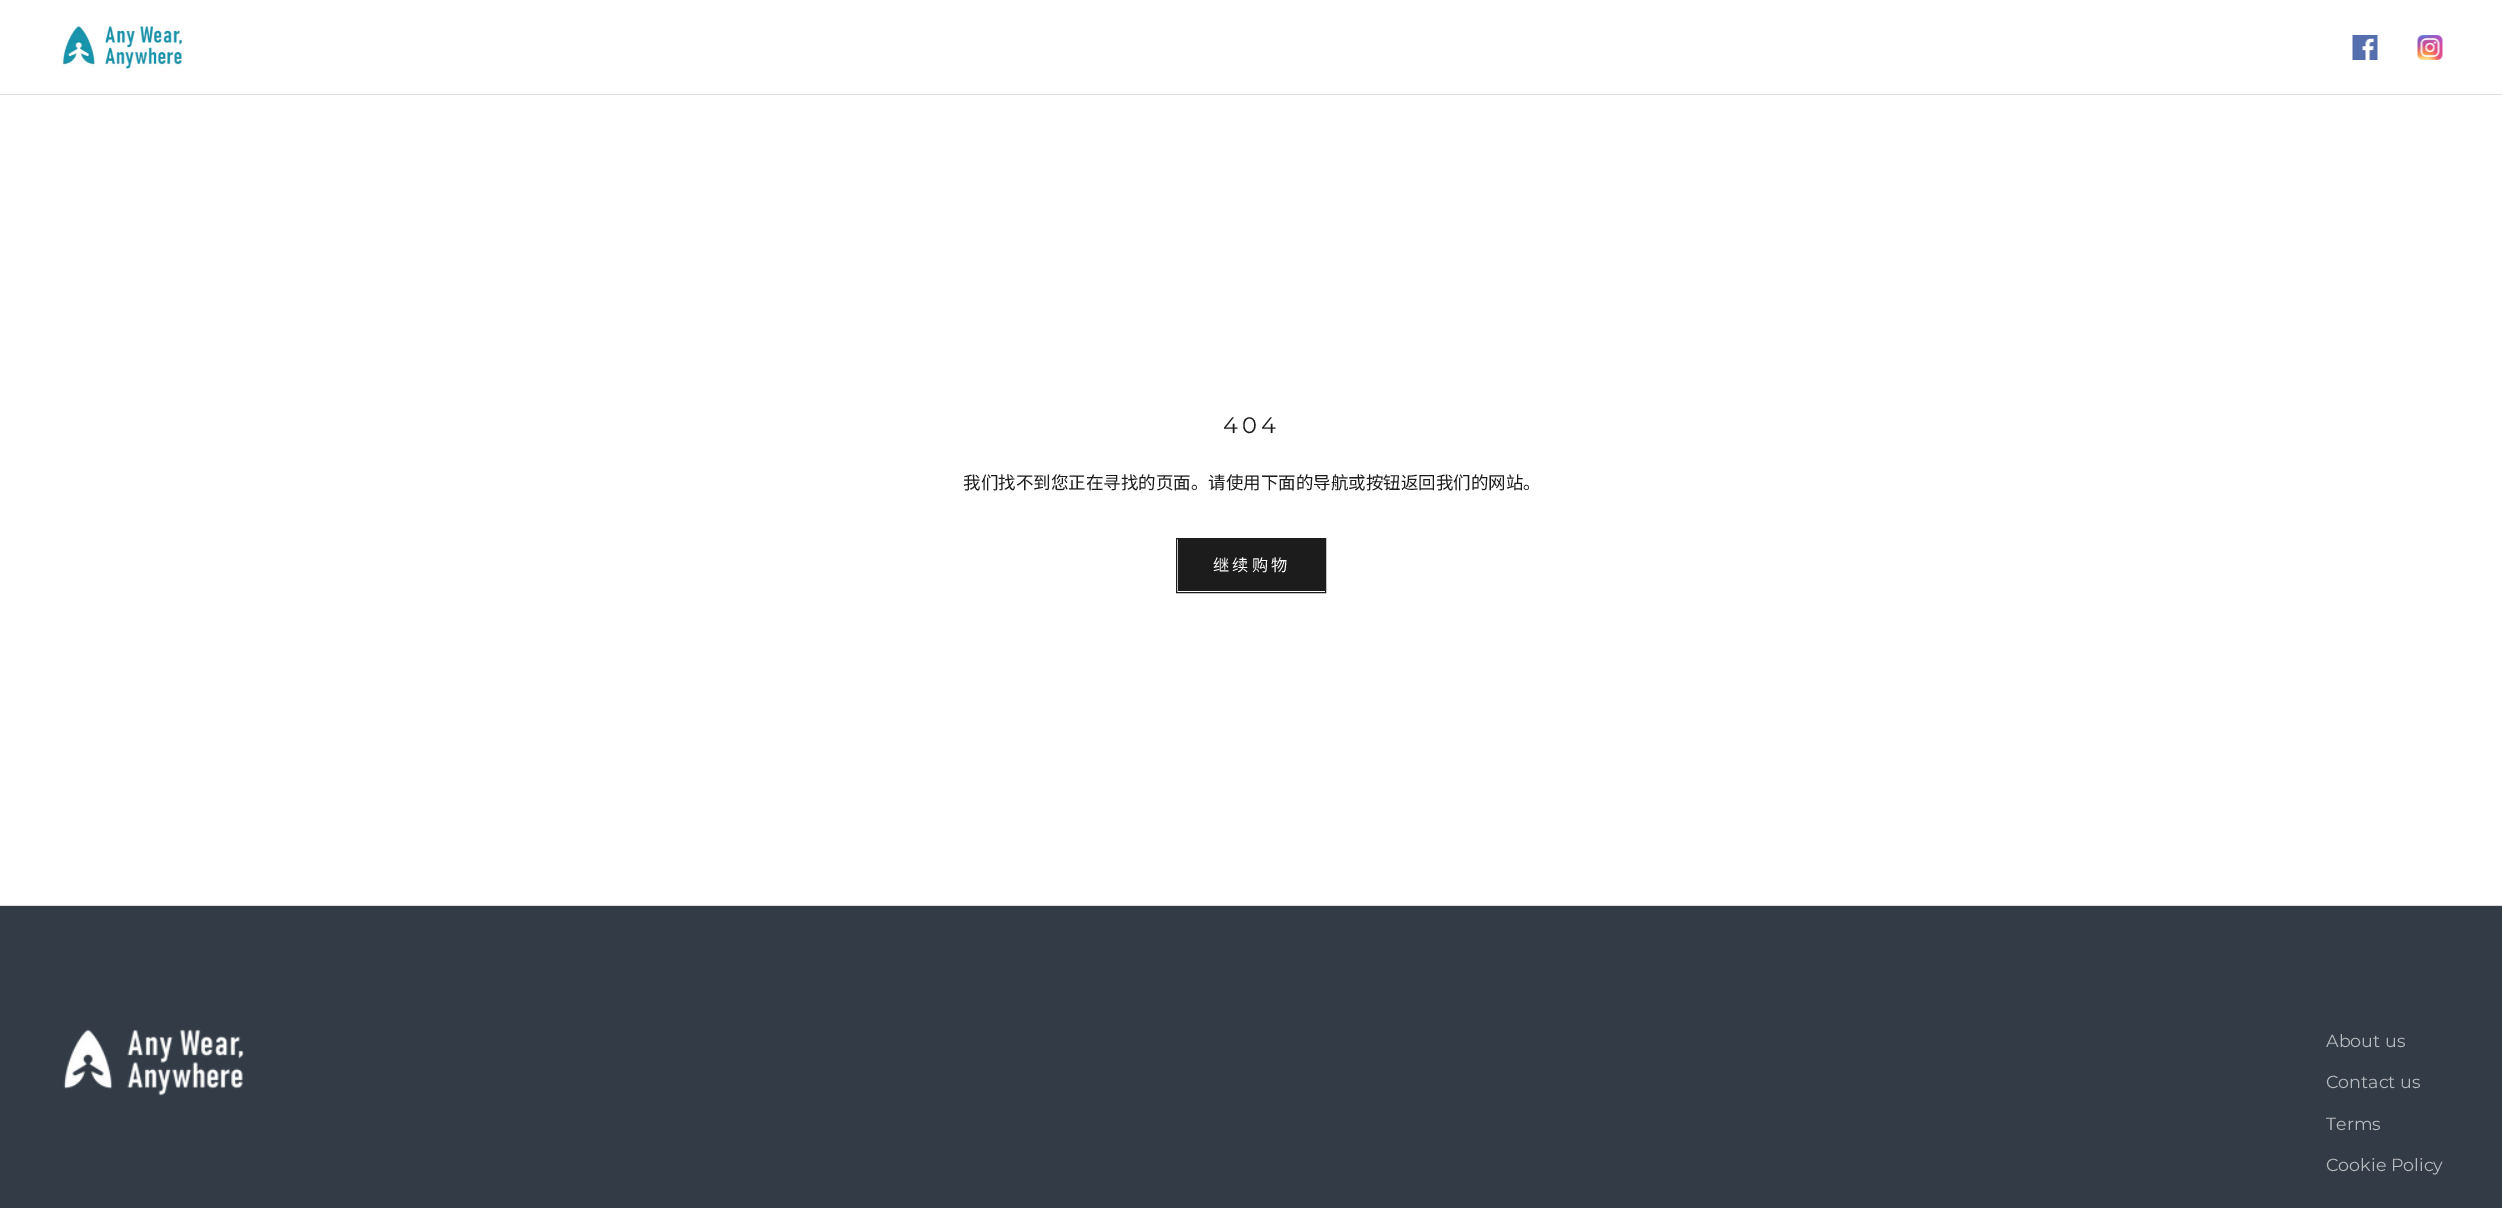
%!PS
<< /PageSize [2502 1208] >> setpagedevice
/m/moveto load def
/C { dup -16 bitshift 255 div exch dup -8 bitshift 255 and 255 div exch 255 and 255 div setrgbcolor } def
/F { [ exch dup neg 0 0 3 -1 roll 0 0 ] selectfont } def
/T { moveto show } def
/R { rectfill } def
/I { 5 dict begin { /h /w /y /x /name } { exch def } forall
  gsave x y translate w h scale
  w h 8 [w 0 0 h 0 0] name (r) file false 3 colorimage grestore end } def
0 1208 translate 1 -1 scale
4 setmiterlimit
16#FFFFFF C
0 0 2502 1208 R
16#DDDDDD C
0 94 2502 1 R
(1.rgb) 60 24 125 45 I
(2.rgb) 2352 35 26 25 I
(3.rgb) 2417 35 26 25 I
/Montserrat-Regular 22.5 F
16#1C1C1C C
1223 433 m 4 0 (404) ashow
/NotoSansCJKSC-Regular 17.5 F
(我们找不到您正在寻找的页面。请使用下面的导航或按钮返回我们的网站。) 963 489 T
1178 539 147 52 R
1176.5 538.5 149 54 rectstroke
/NotoSansCJKSC-Regular 16.25 F
16#FFFFFF C
1213 571 m 3 0 (继续购物) ashow
16#DDDDDD C
0 905 2502 1 R
16#323B46 C
0 906 2502 302 R
(4.rgb) 63 1029 181 67 I
/Montserrat-Regular 17.5 F
16#B7BABE C
(About us) 2326 1047 T
(Contact us) 2326 1088 T
(Terms) 2326 1130 T
(Cookie Policy) 2326 1171 T
showpage
